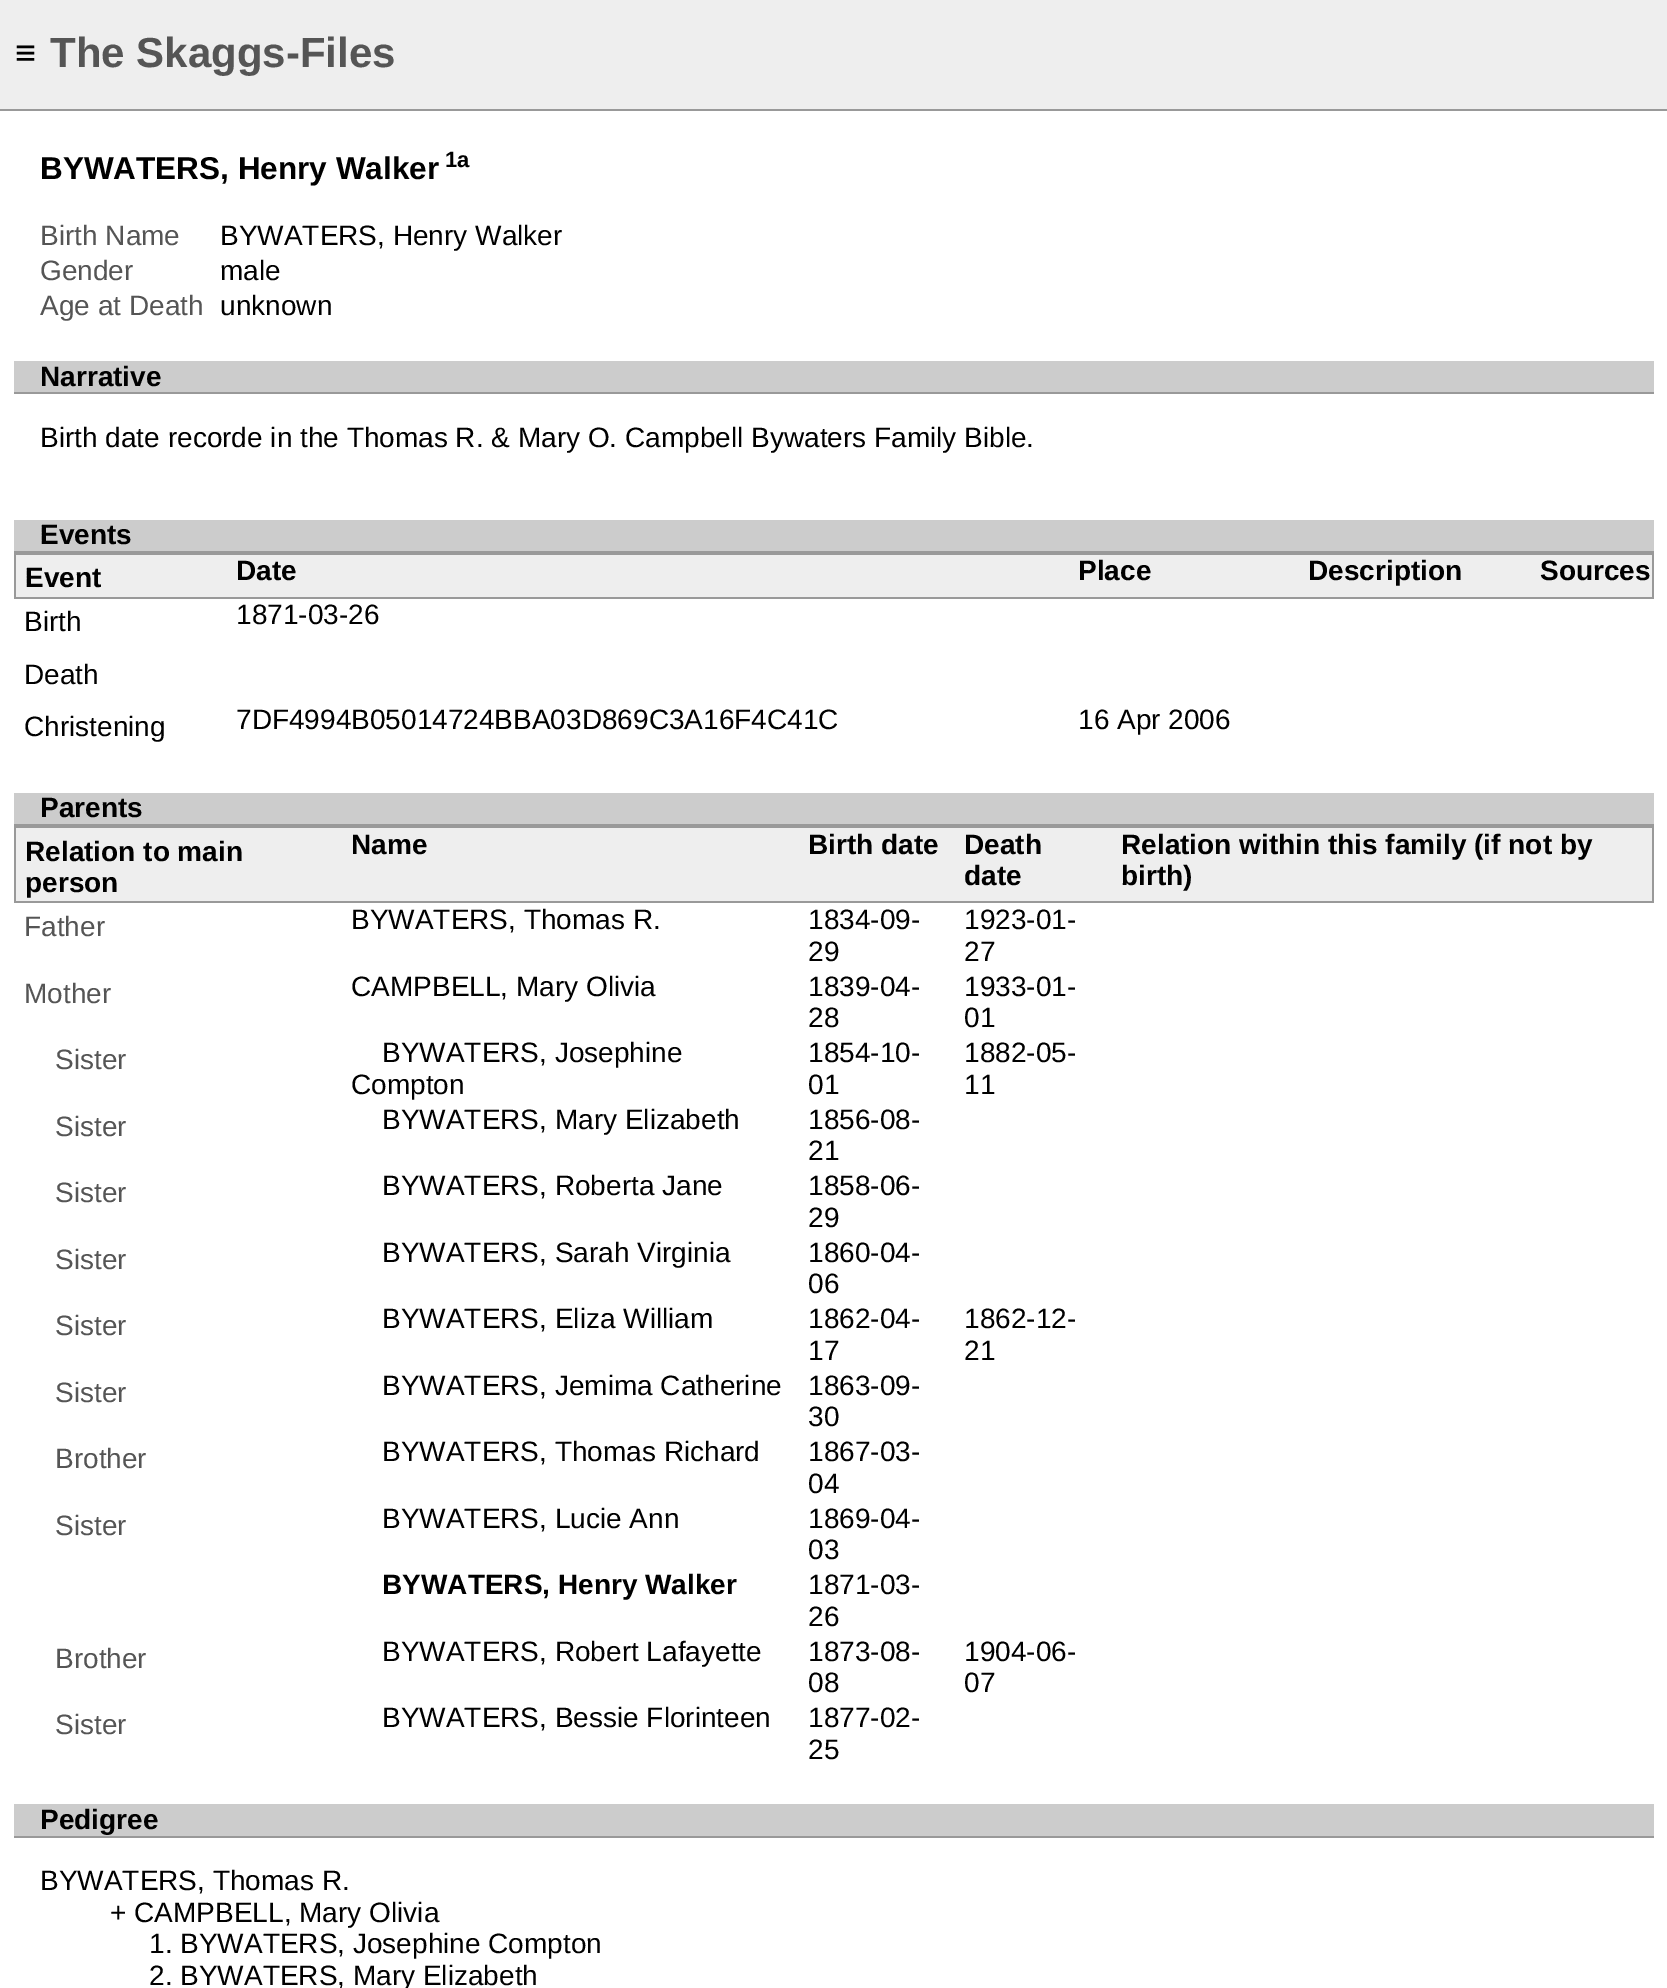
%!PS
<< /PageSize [1667 1988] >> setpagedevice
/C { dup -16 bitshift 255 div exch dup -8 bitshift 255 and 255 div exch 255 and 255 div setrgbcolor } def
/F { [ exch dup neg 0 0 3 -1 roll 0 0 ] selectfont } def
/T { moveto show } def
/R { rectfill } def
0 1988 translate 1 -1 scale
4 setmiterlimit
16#EEEEEE C
0 0 1667 1988 R
/LiberationSans-Regular 36 F
16#000000 C
(≡) 15 65 T
/LiberationSans-Bold 42 F
16#555555 C
(The Skaggs-Files) 50 67 T
16#FFFFFF C
0 111 1667 1877 R
16#999999 C
0 109 1667 2 R
/LiberationSans-Bold 31.5 F
16#000000 C
(BYWATERS, Henry Walker) 40 179 T
/LiberationSans-Bold 22 F
(1a) 445 167 T
/LiberationSans-Regular 28 F
16#555555 C
(Birth Name) 40 245 T
16#000000 C
(BYWATERS, Henry Walker) 220 245 T
16#555555 C
(Gender) 40 280 T
16#000000 C
(male) 220 280 T
16#555555 C
(Age at Death) 40 315 T
16#000000 C
(unknown) 220 315 T
16#CCCCCC C
14 361 1640 31 R
16#999999 C
14 392 1640 2 R
/LiberationSans-Bold 28 F
16#000000 C
(Narrative) 40 386 T
/LiberationSans-Regular 28 F
(Birth date recorde in the Thomas R. & Mary O. Campbell Bywaters Family Bible.) 40 447 T
16#CCCCCC C
14 520 1640 31 R
16#999999 C
14 551 1640 2 R
/LiberationSans-Bold 28 F
16#000000 C
(Events) 40 544 T
16#EEEEEE C
16 555 1636 42 R
16#999999 C
14 553 1640 2 R
1652 553 2 46 R
14 597 1640 2 R
14 553 2 46 R
16#000000 C
(Event) 25 587 T
(Date) 236 580 T
(Place) 1078 580 T
(Description) 1308 580 T
(Sources) 1540 580 T
/LiberationSans-Regular 28 F
(Birth) 24 631 T
(1871-03-26) 236 624 T
(Death) 24 684 T
(Christening) 24 736 T
(7DF4994B05014724BBA03D869C3A16F4C41C) 236 729 T
(16 Apr 2006) 1078 729 T
16#CCCCCC C
14 793 1640 31 R
16#999999 C
14 824 1640 2 R
/LiberationSans-Bold 28 F
16#000000 C
(Parents) 40 817 T
16#EEEEEE C
16 828 1636 73 R
16#999999 C
14 826 1640 2 R
1652 826 2 77 R
14 901 1640 2 R
14 826 2 77 R
16#000000 C
(Relation to main) 25 861 T
(person) 25 892 T
(Name) 351 854 T
(Birth date) 808 854 T
(Death) 964 854 T
(date) 964 885 T
(Relation within this family \(if not by) 1121 854 T
(birth\)) 1121 885 T
/LiberationSans-Regular 28 F
16#555555 C
(Father) 24 936 T
16#000000 C
(BYWATERS, Thomas R.) 351 929 T
(1834-09-) 808 929 T
(29) 808 961 T
(1923-01-) 964 929 T
(27) 964 961 T
16#555555 C
(Mother) 24 1003 T
16#000000 C
(CAMPBELL, Mary Olivia) 351 996 T
(1839-04-) 808 996 T
(28) 808 1027 T
(1933-01-) 964 996 T
(01) 964 1027 T
16#555555 C
(Sister) 55 1069 T
16#000000 C
(BYWATERS, Josephine) 382 1062 T
(Compton) 351 1094 T
(1854-10-) 808 1062 T
(01) 808 1094 T
(1882-05-) 964 1062 T
(11) 964 1094 T
16#555555 C
(Sister) 55 1136 T
16#000000 C
(BYWATERS, Mary Elizabeth) 382 1129 T
(1856-08-) 808 1129 T
(21) 808 1160 T
16#555555 C
(Sister) 55 1202 T
16#000000 C
(BYWATERS, Roberta Jane) 382 1195 T
(1858-06-) 808 1195 T
(29) 808 1227 T
16#555555 C
(Sister) 55 1269 T
16#000000 C
(BYWATERS, Sarah Virginia) 382 1262 T
(1860-04-) 808 1262 T
(06) 808 1293 T
16#555555 C
(Sister) 55 1335 T
16#000000 C
(BYWATERS, Eliza William) 382 1328 T
(1862-04-) 808 1328 T
(17) 808 1360 T
(1862-12-) 964 1328 T
(21) 964 1360 T
16#555555 C
(Sister) 55 1402 T
16#000000 C
(BYWATERS, Jemima Catherine) 382 1395 T
(1863-09-) 808 1395 T
(30) 808 1426 T
16#555555 C
(Brother) 55 1468 T
16#000000 C
(BYWATERS, Thomas Richard) 382 1461 T
(1867-03-) 808 1461 T
(04) 808 1493 T
16#555555 C
(Sister) 55 1535 T
16#000000 C
(BYWATERS, Lucie Ann) 382 1528 T
(1869-04-) 808 1528 T
(03) 808 1559 T
/LiberationSans-Bold 28 F
(BYWATERS, Henry Walker) 382 1594 T
/LiberationSans-Regular 28 F
(1871-03-) 808 1594 T
(26) 808 1626 T
16#555555 C
(Brother) 55 1668 T
16#000000 C
(BYWATERS, Robert Lafayette) 382 1661 T
(1873-08-) 808 1661 T
(08) 808 1692 T
(1904-06-) 964 1661 T
(07) 964 1692 T
16#555555 C
(Sister) 55 1734 T
16#000000 C
(BYWATERS, Bessie Florinteen) 382 1727 T
(1877-02-) 808 1727 T
(25) 808 1759 T
16#CCCCCC C
14 1804 1640 32 R
16#999999 C
14 1836 1640 2 R
/LiberationSans-Bold 28 F
16#000000 C
(Pedigree) 40 1829 T
/LiberationSans-Regular 28 F
(BYWATERS, Thomas R.) 40 1890 T
(+ CAMPBELL, Mary Olivia) 110 1922 T
(1. BYWATERS, Josephine Compton) 149 1953 T
(2. BYWATERS, Mary Elizabeth) 149 1985 T
showpage
